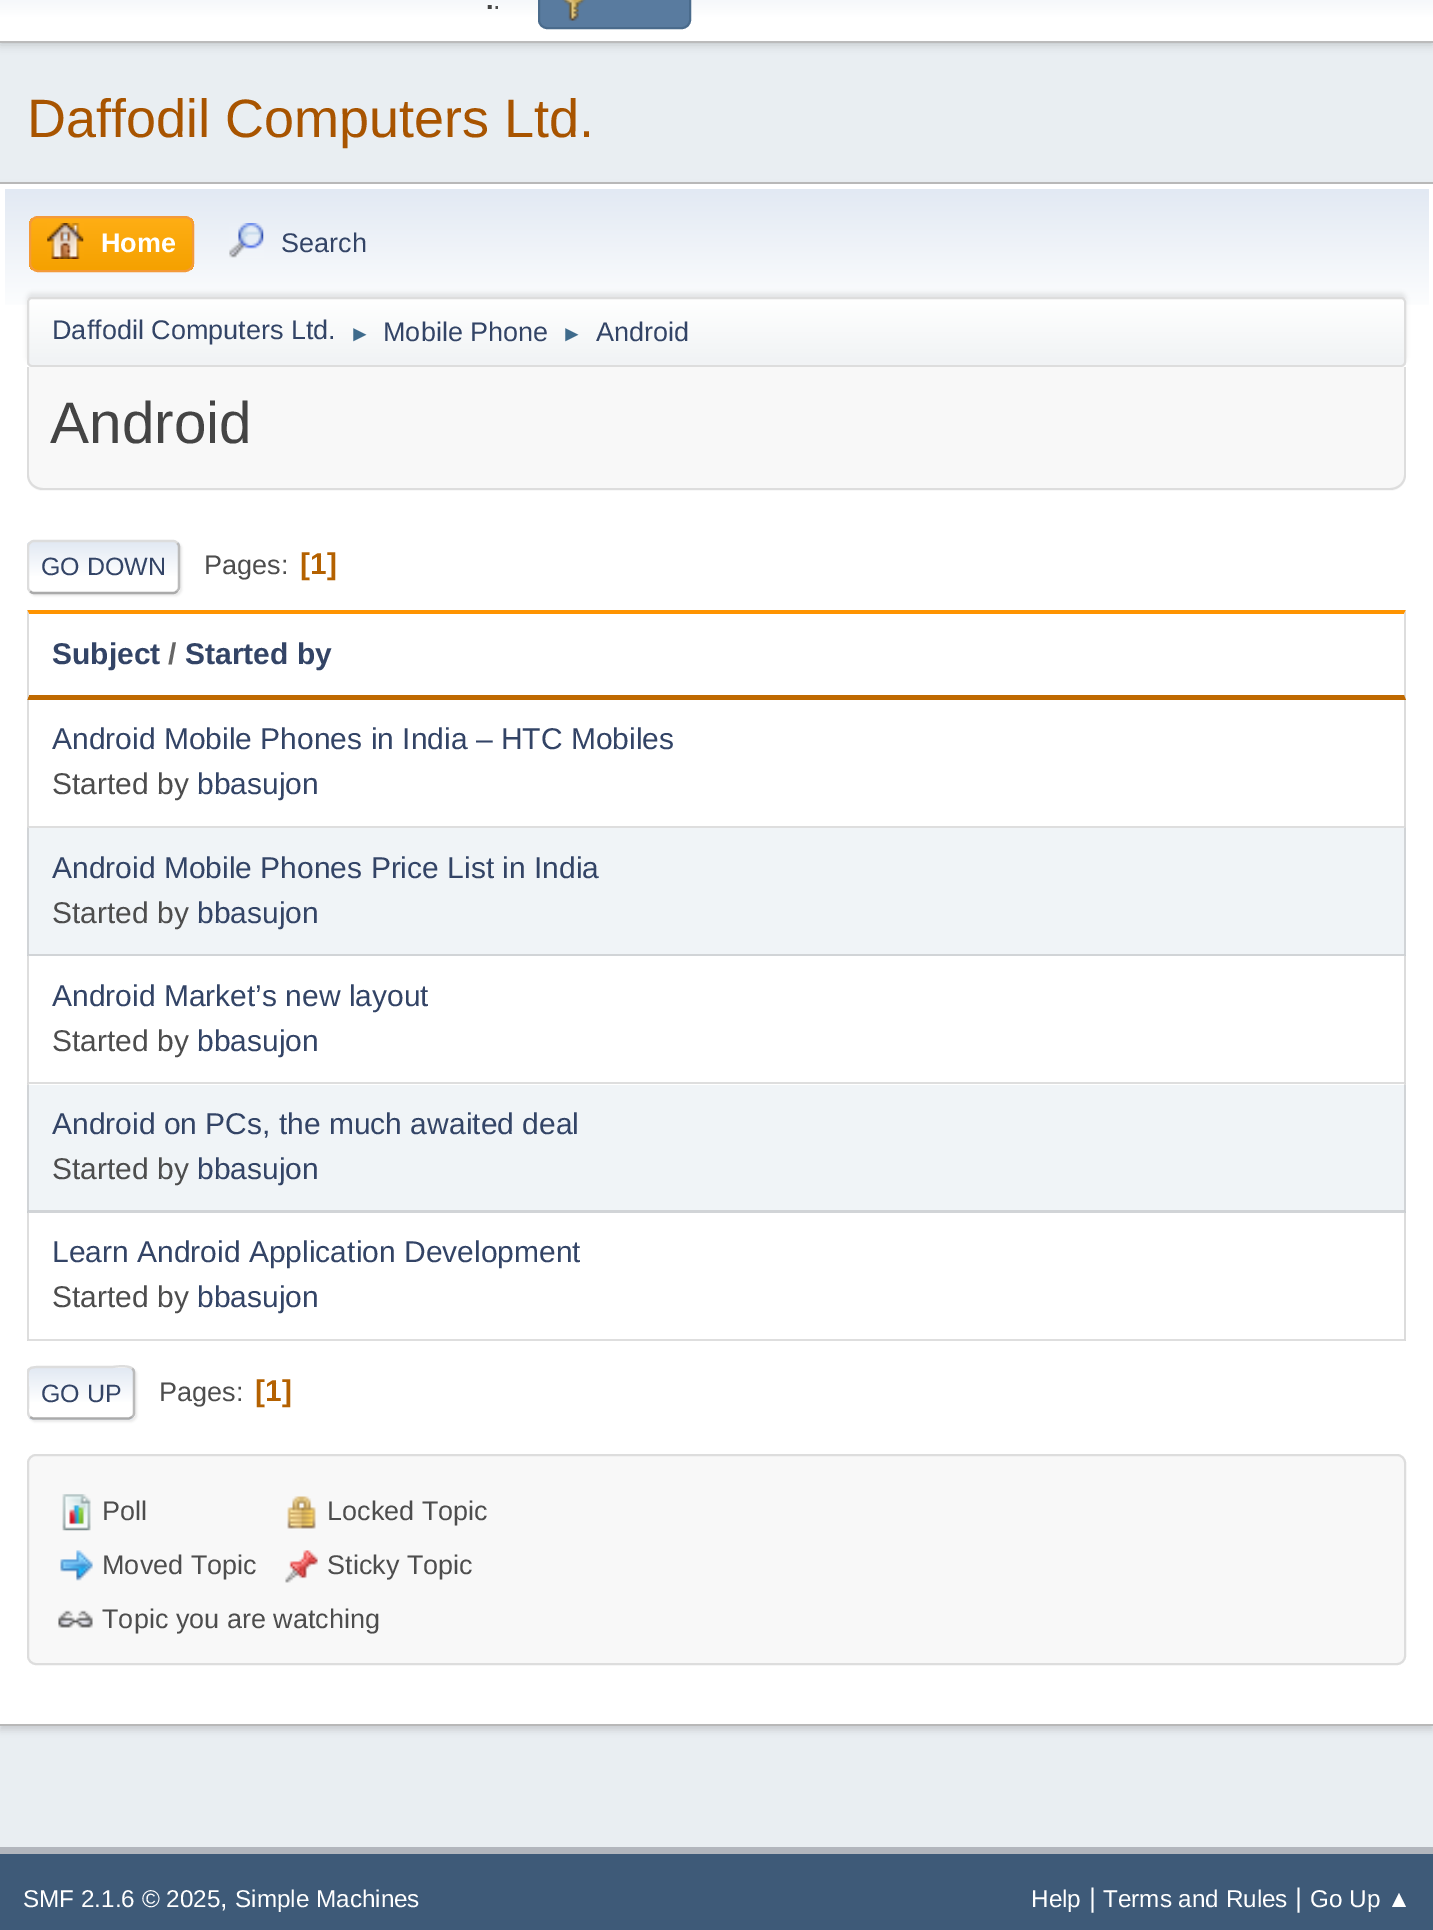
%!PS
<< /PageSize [1433 1930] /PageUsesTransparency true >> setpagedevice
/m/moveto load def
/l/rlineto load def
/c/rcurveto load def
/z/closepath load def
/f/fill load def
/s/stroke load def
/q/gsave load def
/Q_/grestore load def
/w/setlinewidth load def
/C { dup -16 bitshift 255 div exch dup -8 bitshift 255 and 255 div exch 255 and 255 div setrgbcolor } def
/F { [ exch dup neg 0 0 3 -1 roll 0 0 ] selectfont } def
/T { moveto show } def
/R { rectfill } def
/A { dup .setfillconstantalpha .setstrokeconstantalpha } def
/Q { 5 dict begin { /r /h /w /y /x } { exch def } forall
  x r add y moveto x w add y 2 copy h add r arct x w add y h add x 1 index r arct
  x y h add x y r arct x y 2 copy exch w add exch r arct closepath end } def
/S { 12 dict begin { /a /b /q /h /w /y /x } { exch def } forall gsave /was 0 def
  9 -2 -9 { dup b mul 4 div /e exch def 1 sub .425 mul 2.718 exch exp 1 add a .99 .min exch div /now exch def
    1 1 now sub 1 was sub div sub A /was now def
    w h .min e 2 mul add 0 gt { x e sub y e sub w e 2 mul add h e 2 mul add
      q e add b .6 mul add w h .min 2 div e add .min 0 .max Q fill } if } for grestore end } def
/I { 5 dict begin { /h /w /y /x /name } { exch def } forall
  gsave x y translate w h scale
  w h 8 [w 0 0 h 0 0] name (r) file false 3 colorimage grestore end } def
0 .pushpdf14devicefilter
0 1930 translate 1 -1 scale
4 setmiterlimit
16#E9EEF2 C
0 0 1433 1930 R
16#000000 C
0 -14 1433 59 0 4.5 .16 S
q 0 0 m 1433 0 l 0 41 l -1433 0 l z clip newpath
<< /ShadingType 2 /ColorSpace /DeviceRGB /Coords [717 -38 717 41] /Extend [true true] /Function << /FunctionType 3 /Domain [0 1] /Functions [<< /FunctionType 2 /Domain [0 1] /C0 [.886 .914 .953] /C1 [1 1 1] /N 1 >> << /FunctionType 2 /Domain [0 1] /C0 [1 1 1] /C1 [1 1 1] /N 1 >>] /Bounds [.7] /Encode [0 1 0 1] >> >> shfill Q_
16#BBBBBB C
0 41 1433 2 R
/LiberationSans-Bold 27 F
16#444444 C
(.) 486 9 T
/LiberationSans-Regular 27 F
16#4D4D4D C
(.) 493 9 T
16#597B9F C
539 -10 151 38 8 Q q f Q_
16#4A6B8C C
2 w
s
(1.rgb) 562 0 24 21 I
/LiberationSans-Regular 54 F
16#A85400 C
(Daffodil Computers Ltd.) 27 137 T
16#000000 C
0 187 1433 1543 0 3.5 .14 S
16#FFFFFF C
0 184 1433 1540 R
16#B8B8B8 C
0 182 1433 2 R
0 1724 1433 2 R
q 5 189 m 1424 0 l 0 116 l -1424 0 l z clip newpath
<< /ShadingType 2 /ColorSpace /DeviceRGB /Coords [717 189 717 371] /Extend [true true] /Function << /FunctionType 3 /Domain [0 1] /Functions [<< /FunctionType 2 /Domain [0 1] /C0 [.886 .914 .953] /C1 [1 1 1] /N 1 >> << /FunctionType 2 /Domain [0 1] /C0 [1 1 1] /C1 [1 1 1] /N 1 >>] /Bounds [.7] /Encode [0 1 0 1] >> >> shfill Q_
q
29 216 165 56 9 Q clip newpath
q 29 218 m 165 0 l 0 52 l -165 0 l z clip newpath
<< /ShadingType 2 /ColorSpace /DeviceRGB /Coords [111 218 111 270] /Extend [true true] /Function << /FunctionType 2 /Domain [0 1] /C0 [1 .682 .078] /C1 [.961 .631 0] /N 1 >> >> shfill Q_
Q_
16#F49A3A C
30 217 163 54 8 Q s
(2.rgb) 47 223 37 36 I
/LiberationSans-Bold 27 F
16#FFFFFF C
(Home) 101 252 T
(3.rgb) 229 223 35 35 I
/LiberationSans-Regular 27 F
16#334466 C
(Search) 281 252 T
16#000000 C
27 293 1379 69 5 2 .08 S
q
27 297 1379 70 5 Q clip newpath
q 27 299 m 1379 0 l 0 66 l -1379 0 l z clip newpath
<< /ShadingType 2 /ColorSpace /DeviceRGB /Coords [717 299 717 365] /Extend [true true] /Function << /FunctionType 3 /Domain [0 1] /Functions [<< /FunctionType 2 /Domain [0 1] /C0 [1 1 1] /C1 [.945 .953 .961] /N 1 >> << /FunctionType 2 /Domain [0 1] /C0 [.945 .953 .961] /C1 [.945 .953 .961] /N 1 >>] /Bounds [.95] /Encode [0 1 0 1] >> >> shfill Q_
Q_
16#DDDDDD C
28 298 1377 68 4 Q s
16#334466 C
(Daffodil Computers Ltd.) 52 339 T
/LiberationSans-Regular 22 F
16#3F6B8C C
(►) 349 341 T
/LiberationSans-Regular 27 F
16#334466 C
(Mobile Phone) 383 341 T
/LiberationSans-Regular 22 F
16#3F6B8C C
(►) 561 341 T
/LiberationSans-Regular 27 F
16#334466 C
(Android) 596 341 T
16#F8F8F8 C
27 367 m 1379 0 l 0 108 l 0 9 -7 16 -16 16 c -1347 0 l -9 0 -16 -7 -16 -16 c z f
16#DDDDDD C
27 367 m 1379 0 l 0 108 l 0 8 -7 15 -16 15 c -1347 0 l -9 0 -16 -7 -16 -15 c z 29 367 m 1375 0 l 0 108 l 0 7 -6 13 -14 13 c -1347 0 l -8 0 -14 -6 -14 -13 c z eofill
/LiberationSans-Regular 58.5 F
16#444444 C
(Android) 50 443 T
16#DDDDDD C
29 542 153 54 7 1 .57 S
q
27 540 153 54 7 Q clip newpath
q 27 542 m 153 0 l 0 50 l -153 0 l z clip newpath
<< /ShadingType 2 /ColorSpace /DeviceRGB /Coords [104 542 104 592] /Extend [true true] /Function << /FunctionType 3 /Domain [0 1] /Functions [<< /FunctionType 2 /Domain [0 1] /C0 [.886 .914 .953] /C1 [1 1 1] /N 1 >> << /FunctionType 2 /Domain [0 1] /C0 [1 1 1] /C1 [1 1 1] /N 1 >>] /Bounds [.7] /Encode [0 1 0 1] >> >> shfill Q_
Q_
16#BBBBBB C
2.2 w
177 543 m 1.5 1 2 2.5 2 4 c 0 40 l 0 1.5 -.5 3 -2 4 c s
16#AAAAAA C
177 591 m -1 1.5 -2.5 2 -4 2 c -139 0 l -1.5 0 -3 -.5 -4 -2 c s
q
27 524 1379 86 rectclip
16#DDDDDD C
30 591 m -1.5 -1 -2 -2.5 -2 -4 c 0 -40 l 0 -1.5 .5 -3 2 -4 c 1 -1.5 2.5 -2 4 -2 c 139 0 l 1.5 0 3 .5 4 2 c s
Q_
/LiberationSans-Regular 25 F
16#334466 C
(GO DOWN) 41 575 T
/LiberationSans-Regular 27 F
16#4D4D4D C
(Pages:) 204 574 T
/LiberationSans-Bold 30 F
16#B46100 C
([1]) 300 574 T
16#FF9400 C
27 610 m 1379 0 l -2 4 l -1375 0 l z f
16#DDDDDD C
1406 610 m 0 90 l -2 -5 l 0 -81 l z f
16#BF6900 C
1406 700 m -1379 0 l 2 -5 l 1375 0 l z f
16#DDDDDD C
27 700 m 0 -90 l 2 4 l 0 81 l z f
16#334466 C
(Subject) 52 664 T
16#666666 C
(/) 168 664 T
16#334466 C
(Started by) 185 664 T
16#DCDCDC C
1406 700 m 0 128 l -2 -2 l 0 -126 l z f
0.13 A
16#000000 C
1406 828 m -1379 0 l 2 -2 l 1375 0 l z f
27 828 m 0 -128 l 2 0 l 0 126 l z f
/LiberationSans-Regular 30 F
1 A
16#334466 C
(Android Mobile Phones in India – HTC Mobiles) 52 749 T
16#4D4D4D C
(Started by) 52 794 T
16#334466 C
(bbasujon) 197 794 T
16#F0F4F7 C
27 828 1379 128 R
16#D1D4D7 C
1406 828 m 0 128 l -2 -2 l 0 -126 l z f
0.13 A
16#000000 C
1406 956 m -1379 0 l 2 -2 l 1375 0 l z f
27 956 m 0 -128 l 2 0 l 0 126 l z f
1 A
16#334466 C
(Android Mobile Phones Price List in India) 52 878 T
16#4D4D4D C
(Started by) 52 923 T
16#334466 C
(bbasujon) 197 923 T
16#DCDCDC C
1406 956 m 0 128 l -2 -2 l 0 -126 l z f
0.13 A
16#000000 C
1406 1084 m -1379 0 l 2 -2 l 1375 0 l z f
27 1084 m 0 -128 l 2 0 l 0 126 l z f
1 A
16#334466 C
(Android Market’s new layout) 52 1006 T
16#4D4D4D C
(Started by) 52 1051 T
16#334466 C
(bbasujon) 197 1051 T
16#F0F4F7 C
27 1085 1379 128 R
0.13 A
16#000000 C
1406 1084 m 0 129 l -2 -3 l 0 -126 l z f
1406 1213 m -1379 0 l 2 -3 l 1375 0 l z f
27 1213 m 0 -129 l 2 0 l 0 126 l z f
1 A
16#334466 C
(Android on PCs, the much awaited deal) 52 1134 T
16#4D4D4D C
(Started by) 52 1179 T
16#334466 C
(bbasujon) 197 1179 T
16#DCDCDC C
1406 1213 m 0 128 l -2 -2 l 0 -126 l z f
0.13 A
16#000000 C
1406 1341 m -1379 0 l 2 -2 l 1375 0 l z f
27 1341 m 0 -128 l 2 0 l 0 126 l z f
1 A
16#334466 C
(Learn Android Application Development) 52 1262 T
16#4D4D4D C
(Started by) 52 1307 T
16#334466 C
(bbasujon) 197 1307 T
16#DDDDDD C
29 1368 108 54 7 1 .57 S
16#FFFFFF C
27 1366 108 54 7 Q f
q
27 1366 108 54 7 Q clip newpath
q 27 1368 m 108 0 l 0 50 l -108 0 l z clip newpath
<< /ShadingType 2 /ColorSpace /DeviceRGB /Coords [81 1368 81 1418] /Extend [true true] /Function << /FunctionType 3 /Domain [0 1] /Functions [<< /FunctionType 2 /Domain [0 1] /C0 [.886 .914 .953] /C1 [1 1 1] /N 1 >> << /FunctionType 2 /Domain [0 1] /C0 [1 1 1] /C1 [1 1 1] /N 1 >>] /Bounds [.7] /Encode [0 1 0 1] >> >> shfill Q_
q 27 1418 m 108 0 l 0 2 l -108 0 l z clip newpath
<< /ShadingType 2 /ColorSpace /DeviceRGB /Coords [81 1418 81 1467] /Extend [true true] /Function << /FunctionType 3 /Domain [0 1] /Functions [<< /FunctionType 2 /Domain [0 1] /C0 [.886 .914 .953] /C1 [1 1 1] /N 1 >> << /FunctionType 2 /Domain [0 1] /C0 [1 1 1] /C1 [1 1 1] /N 1 >>] /Bounds [.7] /Encode [0 1 0 1] >> >> shfill Q_
Q_
16#BBBBBB C
132 1368.5 m 1.5 1 2 2.5 2 4 c 0 40.5 l 0 1.5 -.5 3 -2 4 c s
16#AAAAAA C
132 1417 m -3 1.5 l -96 0 l -3 -1.5 l s
q
27 1350 1379 86 rectclip
16#DDDDDD C
30 1417 m -3 -2.5 -2 -7.5 -2 -11 c 0 -13 l 0 -28 -5 -26 21.5 -26 c 63 0 l 0 0 15.5 -2.5 19.5 1.5 c s
Q_
/LiberationSans-Regular 25 F
16#334466 C
(GO UP) 41 1402 T
/LiberationSans-Regular 27 F
16#4D4D4D C
(Pages:) 159 1401 T
/LiberationSans-Bold 30 F
16#B46100 C
([1]) 255 1401 T
16#F8F8F8 C
28 1455 1377 209 8 Q q f Q_
16#DDDDDD C
2 w
s
(4.rgb) 287 1496 29 33 I
/LiberationSans-Regular 27 F
16#4D4D4D C
(Locked Topic) 327 1520 T
(5.rgb) 285 1550 33 33 I
(Sticky Topic) 327 1574 T
(6.rgb) 58 1610 35 18 I
(Topic you are watching) 102 1628 T
(7.rgb) 62 1494 29 37 I
(Poll) 102 1520 T
(8.rgb) 60 1550 33 31 I
(Moved Topic) 102 1574 T
16#3E5A78 C
0 1854 1433 76 R
16#B2B6BD C
0 1847 1433 7 R
/LiberationSans-Regular 24.25 F
16#FFFFFF C
(SMF 2.1.6 © 2025) 23 1907 T
/LiberationSans-Regular 27 F
(,) 220 1907 T
/LiberationSans-Regular 24.25 F
(Simple Machines) 235 1907 T
(Help) 1031 1907 T
/LiberationSans-Regular 27 F
(|) 1089 1907 T
/LiberationSans-Regular 24.25 F
(Terms and Rules) 1103 1907 T
/LiberationSans-Regular 27 F
(|) 1295 1907 T
/LiberationSans-Regular 24.25 F
(Go Up ▲) 1310 1907 T
.poppdf14devicefilter showpage
